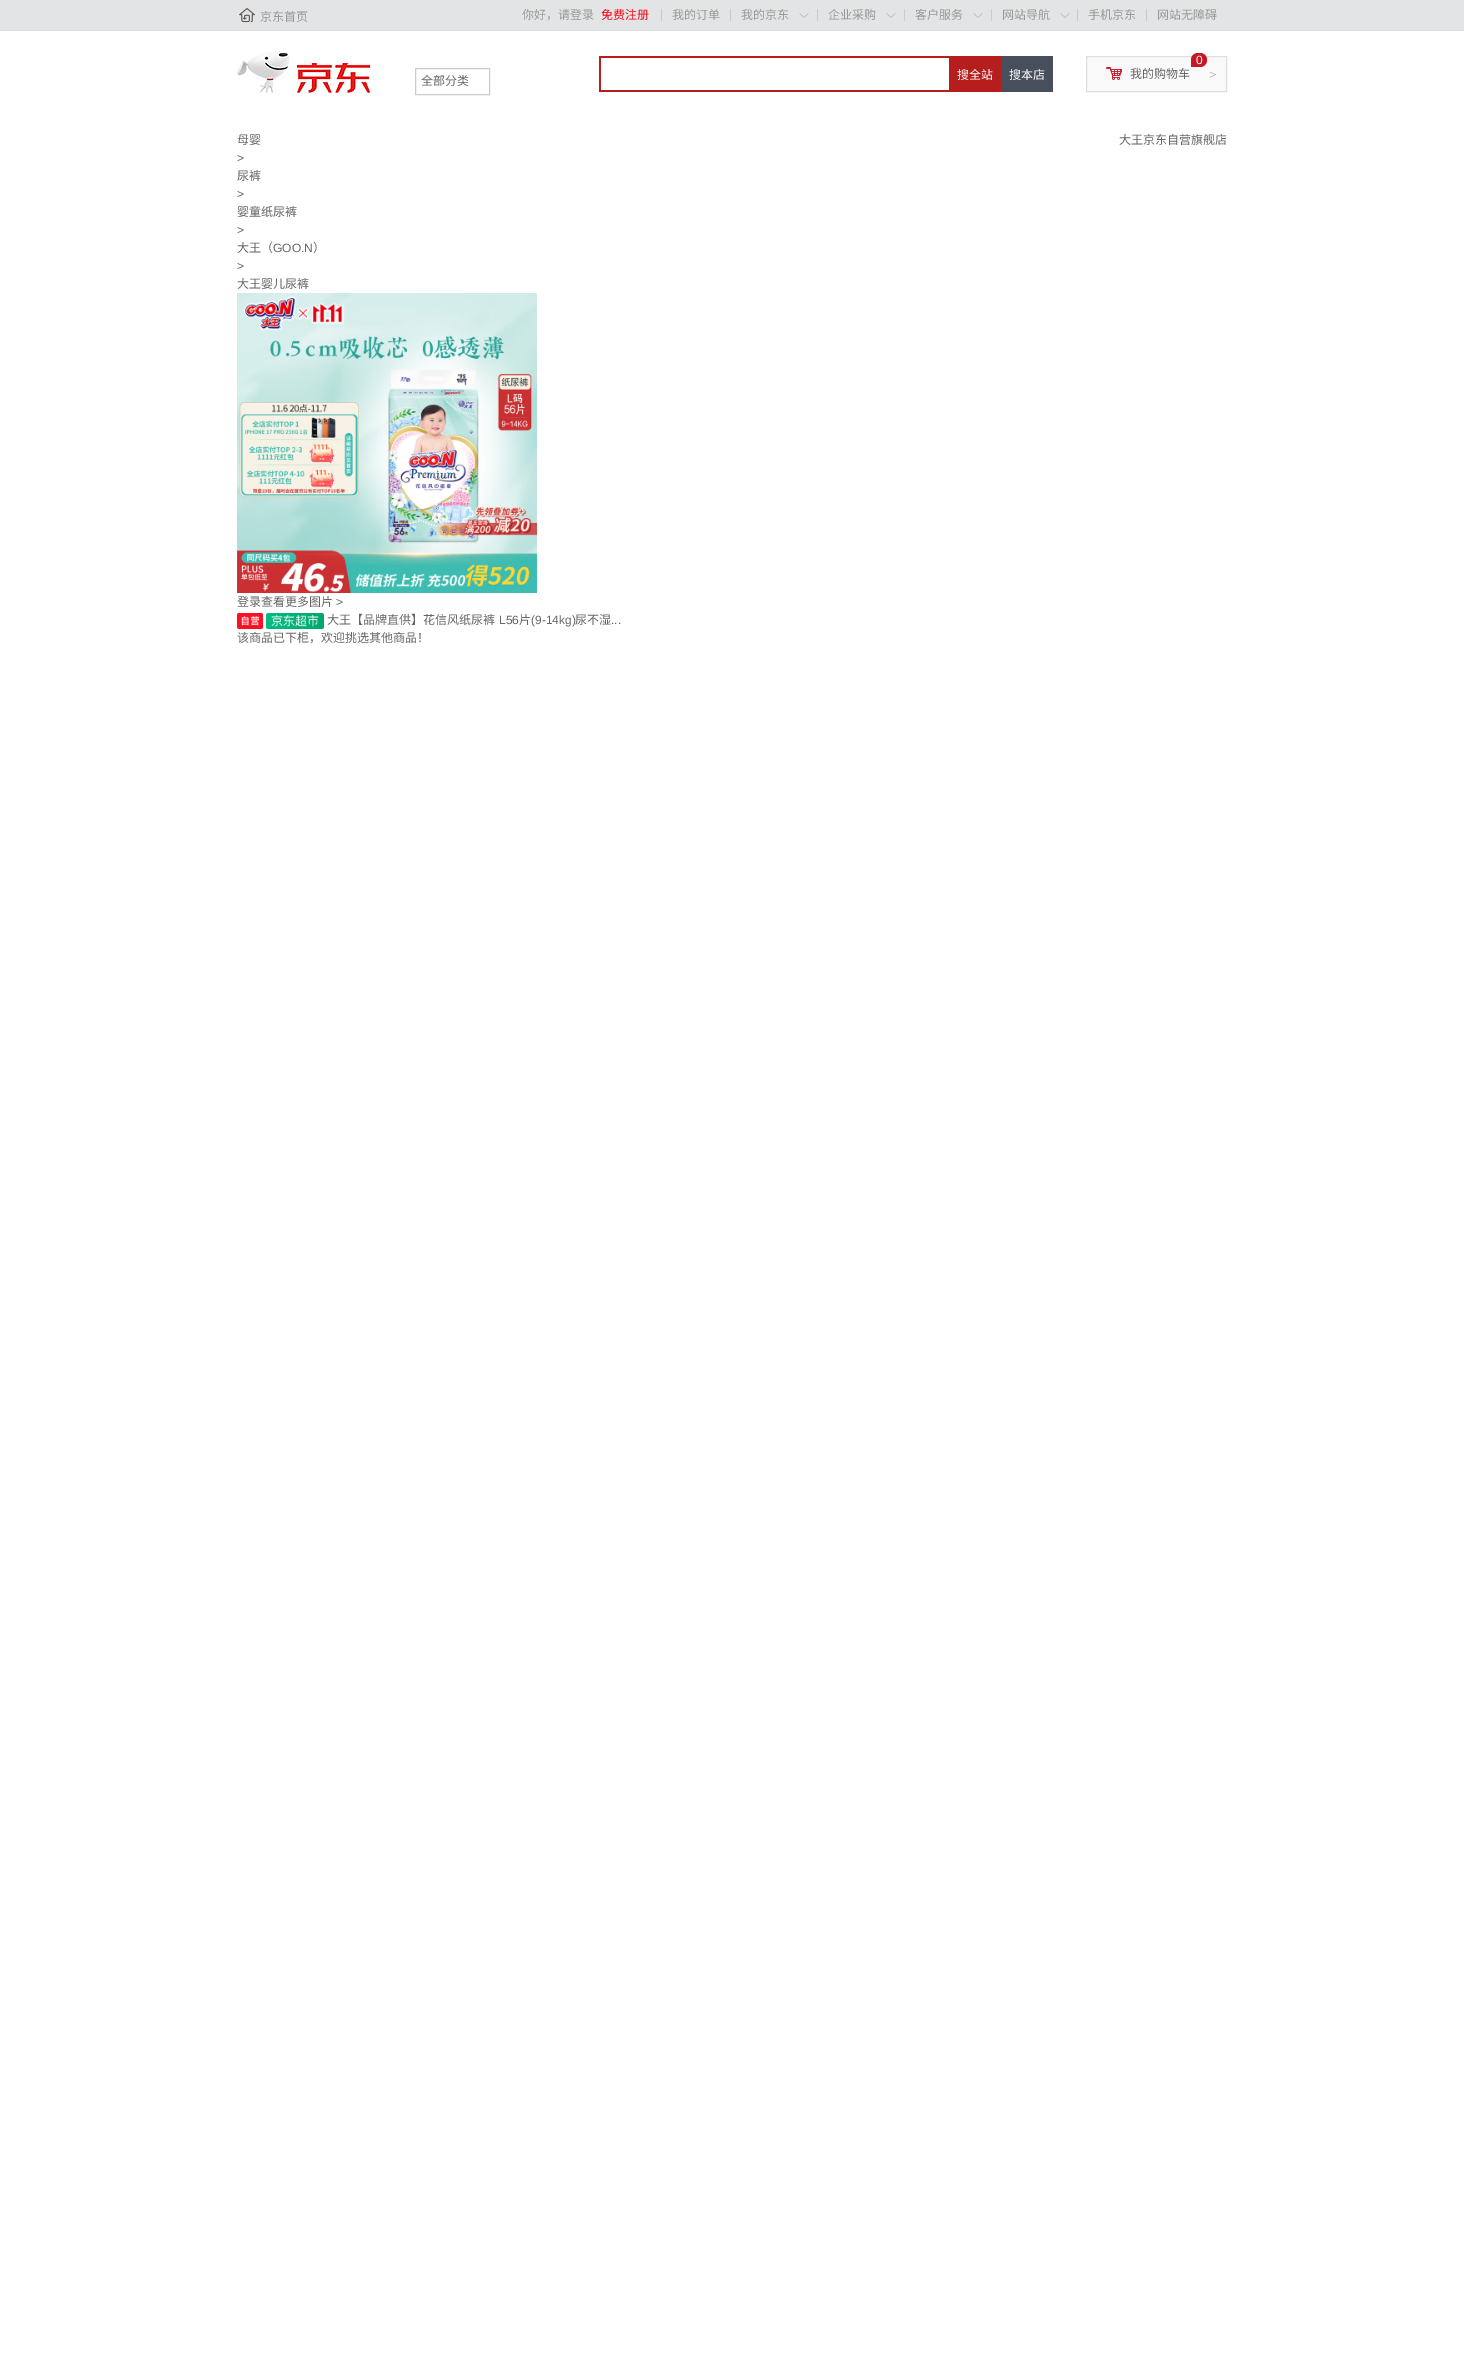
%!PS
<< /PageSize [1464 2378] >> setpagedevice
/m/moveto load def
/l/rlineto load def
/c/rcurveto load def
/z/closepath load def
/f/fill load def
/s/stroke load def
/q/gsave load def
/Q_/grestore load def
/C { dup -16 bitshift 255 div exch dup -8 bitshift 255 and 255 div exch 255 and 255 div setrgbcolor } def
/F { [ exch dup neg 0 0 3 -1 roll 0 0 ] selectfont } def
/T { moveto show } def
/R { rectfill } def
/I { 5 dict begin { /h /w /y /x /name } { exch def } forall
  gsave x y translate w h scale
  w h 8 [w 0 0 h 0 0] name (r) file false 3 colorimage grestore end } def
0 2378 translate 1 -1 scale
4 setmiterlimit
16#FFFFFF C
0 0 1464 2378 R
16#E3E4E5 C
0 0 1464 30 R
16#DDDDDD C
0 30 1464 1 R
(1.rgb) 239 8 16 15 I
/NotoSansCJKSC-Regular 12 F
16#999999 C
(京东首页) 260 21 T
(你好，请登录) 522 19 T
16#F30213 C
(免费注册) 601 19 T
16#CCCCCC C
661 9 1 12 R
16#999999 C
(我的订单) 672 19 T
16#CCCCCC C
730 9 1 12 R
16#999999 C
(我的京东) 741 19 T
(2.rgb) 799 13 10 5 I
16#CCCCCC C
817 9 1 12 R
16#999999 C
(企业采购) 828 19 T
(2.rgb) 886 13 10 5 I
16#CCCCCC C
904 9 1 12 R
16#999999 C
(客户服务) 915 19 T
(2.rgb) 973 13 10 5 I
16#CCCCCC C
991 9 1 12 R
16#999999 C
(网站导航) 1002 19 T
(2.rgb) 1060 13 10 5 I
16#CCCCCC C
1077 9 1 12 R
16#999999 C
(手机京东) 1088 19 T
16#CCCCCC C
1146 9 1 12 R
16#999999 C
(网站无障碍) 1157 19 T
(3.rgb) 237 51 134 42 I
16#CCCCCC C
415.5 68.5 74 26 rectstroke
16#666666 C
(全部分类) 421 85 T
16#B61D1D C
599 56 350 2 R
599 90 350 2 R
599 56 2 36 R
949 56 52 36 R
16#FFFFFF C
(搜全站) 957 79 T
16#474E5C C
1001 56 52 36 R
16#FFFFFF C
(搜本店) 1009 79 T
16#F9F9F9 C
1086.5 56.5 m 140 0 l 0 35 l -140 0 l z q f Q_
16#DFDFDF C
s
16#C81623 C
1198 53 m 2 0 l 4 0 7 3 7 7 c 0 4 -3 7 -7 7 c -9 0 l 0 -7 l 0 -4 3 -7 7 -7 c z f
/LiberationSans-Regular 12 F
16#FFFFFF C
(0) 1196 64 T
(4.rgb) 1106 67 16 13 I
/NotoSansCJKSC-Regular 12 F
16#666666 C
(我的购物车) 1130 78 T
/LiberationSerif-Regular 13 F
16#999999 C
(>) 1209 79 T
/NotoSansCJKSC-Regular 12 F
16#666666 C
(母婴) 237 144 T
/LiberationSans-Regular 12 F
(>) 237 162 T
/NotoSansCJKSC-Regular 12 F
(尿裤) 237 180 T
/LiberationSans-Regular 12 F
(>) 237 198 T
/NotoSansCJKSC-Regular 12 F
(婴童纸尿裤) 237 216 T
/LiberationSans-Regular 12 F
(>) 237 234 T
/NotoSansCJKSC-Regular 12 F
(大王（) 237 252 T
/LiberationSans-Regular 12 F
(GOO.N) 273 252 T
/NotoSansCJKSC-Regular 12 F
(）) 313 252 T
/LiberationSans-Regular 12 F
(>) 237 270 T
/NotoSansCJKSC-Regular 12 F
(大王婴儿尿裤) 237 288 T
(大王京东自营旗舰店) 1119 144 T
(5.rgb) 237 293 300 300 I
(登录查看更多图片) 237 606 T
/LiberationSans-Regular 12 F
(>) 336 606 T
(6.rgb) 237 613 26 16 I
(7.rgb) 266 613 58 16 I
/NotoSansCJKSC-Regular 12 F
(大王【品牌直供】花信风纸尿裤) 327 624 T
/LiberationSans-Regular 12 F
(L56) 499 624 T
/NotoSansCJKSC-Regular 12 F
(片) 519 624 T
/LiberationSans-Regular 12 F
(\(9-14kg\)) 531 624 T
/NotoSansCJKSC-Regular 12 F
(尿不湿) 575 624 T
/LiberationSans-Regular 12 F
(...) 611 624 T
/NotoSansCJKSC-Regular 12 F
(该商品已下柜，欢迎挑选其他商品！) 237 642 T
showpage
